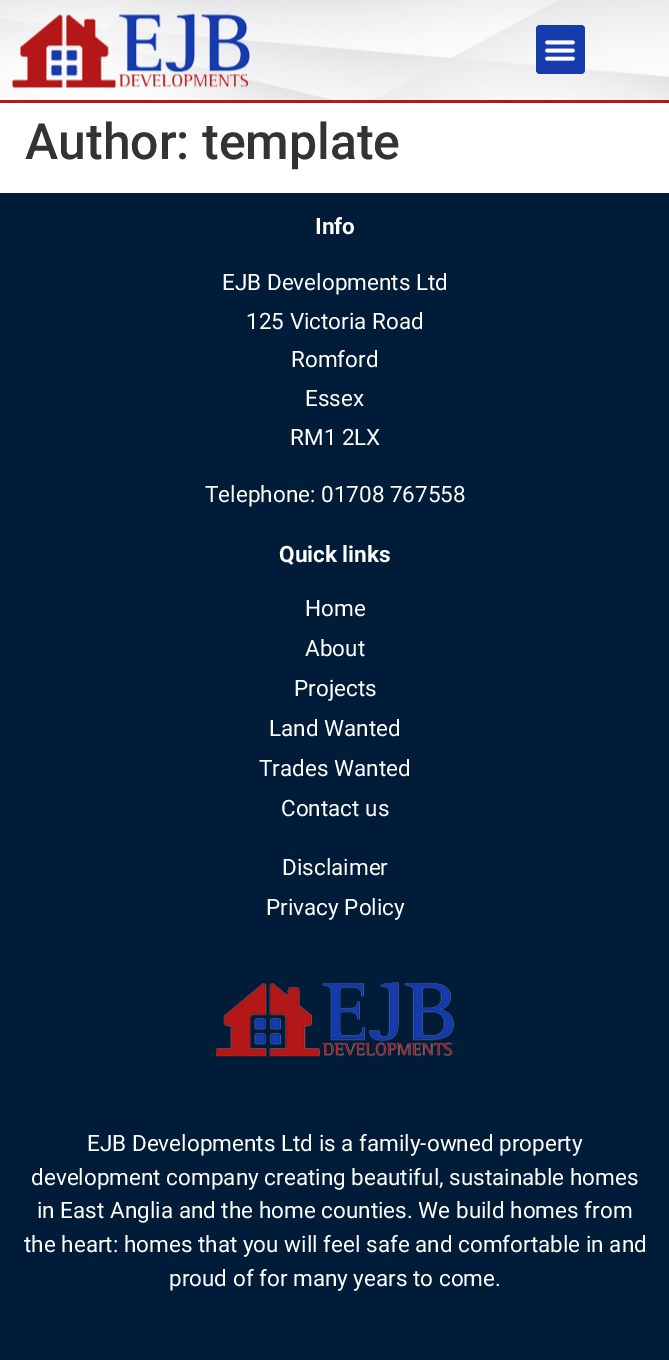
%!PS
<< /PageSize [669 1360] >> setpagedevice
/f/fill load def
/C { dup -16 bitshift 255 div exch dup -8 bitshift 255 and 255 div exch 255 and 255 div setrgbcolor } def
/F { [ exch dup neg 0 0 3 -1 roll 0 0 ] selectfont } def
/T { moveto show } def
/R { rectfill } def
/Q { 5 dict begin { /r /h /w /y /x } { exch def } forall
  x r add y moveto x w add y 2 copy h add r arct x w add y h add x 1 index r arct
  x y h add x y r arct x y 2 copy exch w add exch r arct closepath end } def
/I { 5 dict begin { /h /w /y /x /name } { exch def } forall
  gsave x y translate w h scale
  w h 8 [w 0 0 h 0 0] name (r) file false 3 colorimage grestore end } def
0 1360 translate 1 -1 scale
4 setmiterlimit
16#FFFFFF C
0 0 669 1360 R
(1.rgb) 0 0 669 100 I
16#B31717 C
0 100 669 3 R
(2.rgb) 12 13 238 75 I
16#163BAC C
536 25 49 49 4 Q f
(3.rgb) 545 40 30 21 I
/Roboto-Medium 50 F
16#333333 C
(Author: template) 25 159 T
16#001C38 C
0 193 669 1167 R
/Roboto-Bold 22.5 F
16#FFFFFF C
(Info) 315 234 T
/Roboto-Regular 22.5 F
(EJB Developments Ltd) 222 290 T
(125 Victoria Road) 246 329 T
(Romford) 291 367 T
(Essex) 305 406 T
(RM1 2LX) 290 445 T
(Telephone: 01708 767558) 205 502 T
/Roboto-Bold 22.5 F
(Quick links) 279 562 T
/Roboto-Regular 22.5 F
(Home) 305 616 T
(About) 305 656 T
(Projects) 294 696 T
(Land Wanted) 269 736 T
(Trades Wanted) 259 776 T
(Contact us) 281 816 T
(Disclaimer) 282 875 T
(Privacy Policy) 266 915 T
(4.rgb) 216 982 238 75 I
(EJB Developments Ltd is a family-owned property) 87 1151 T
(development company creating beautiful, sustainable homes) 31 1185 T
(in East Anglia and the home counties. We build homes from) 37 1218 T
(the heart: homes that you will feel safe and comfortable in and) 24 1252 T
(proud of for many years to come.) 169 1286 T
showpage
